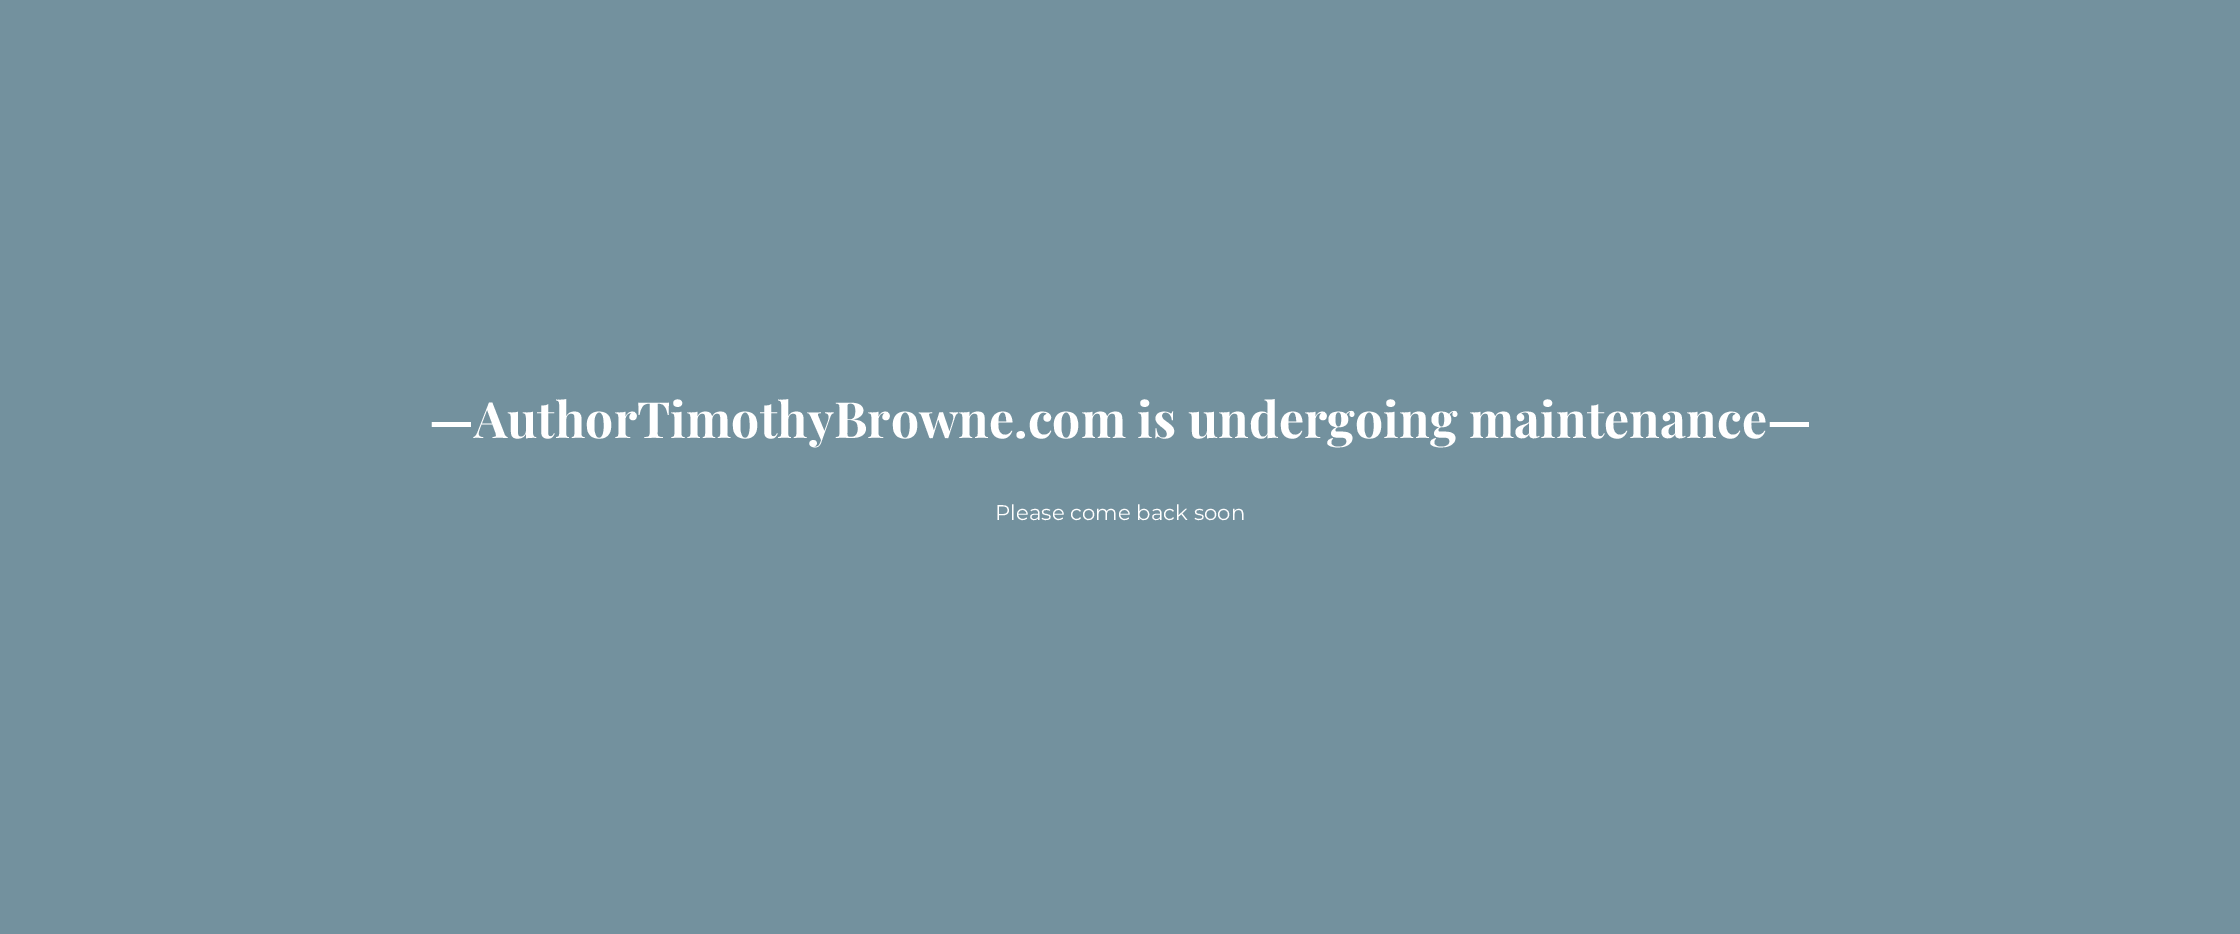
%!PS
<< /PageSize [2240 934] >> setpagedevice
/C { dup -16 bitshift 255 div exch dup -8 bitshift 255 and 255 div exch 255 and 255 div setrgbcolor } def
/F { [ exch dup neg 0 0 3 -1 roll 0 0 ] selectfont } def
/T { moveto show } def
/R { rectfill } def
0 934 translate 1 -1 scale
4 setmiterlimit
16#73919E C
0 0 2240 934 R
/PlayfairDisplay-Bold 50 F
16#FFFFFF C
(—AuthorTimothyBrowne.com is undergoing maintenance—) 429 438 T
/Montserrat-Regular 21.25 F
(Please come back soon) 995 520 T
showpage
